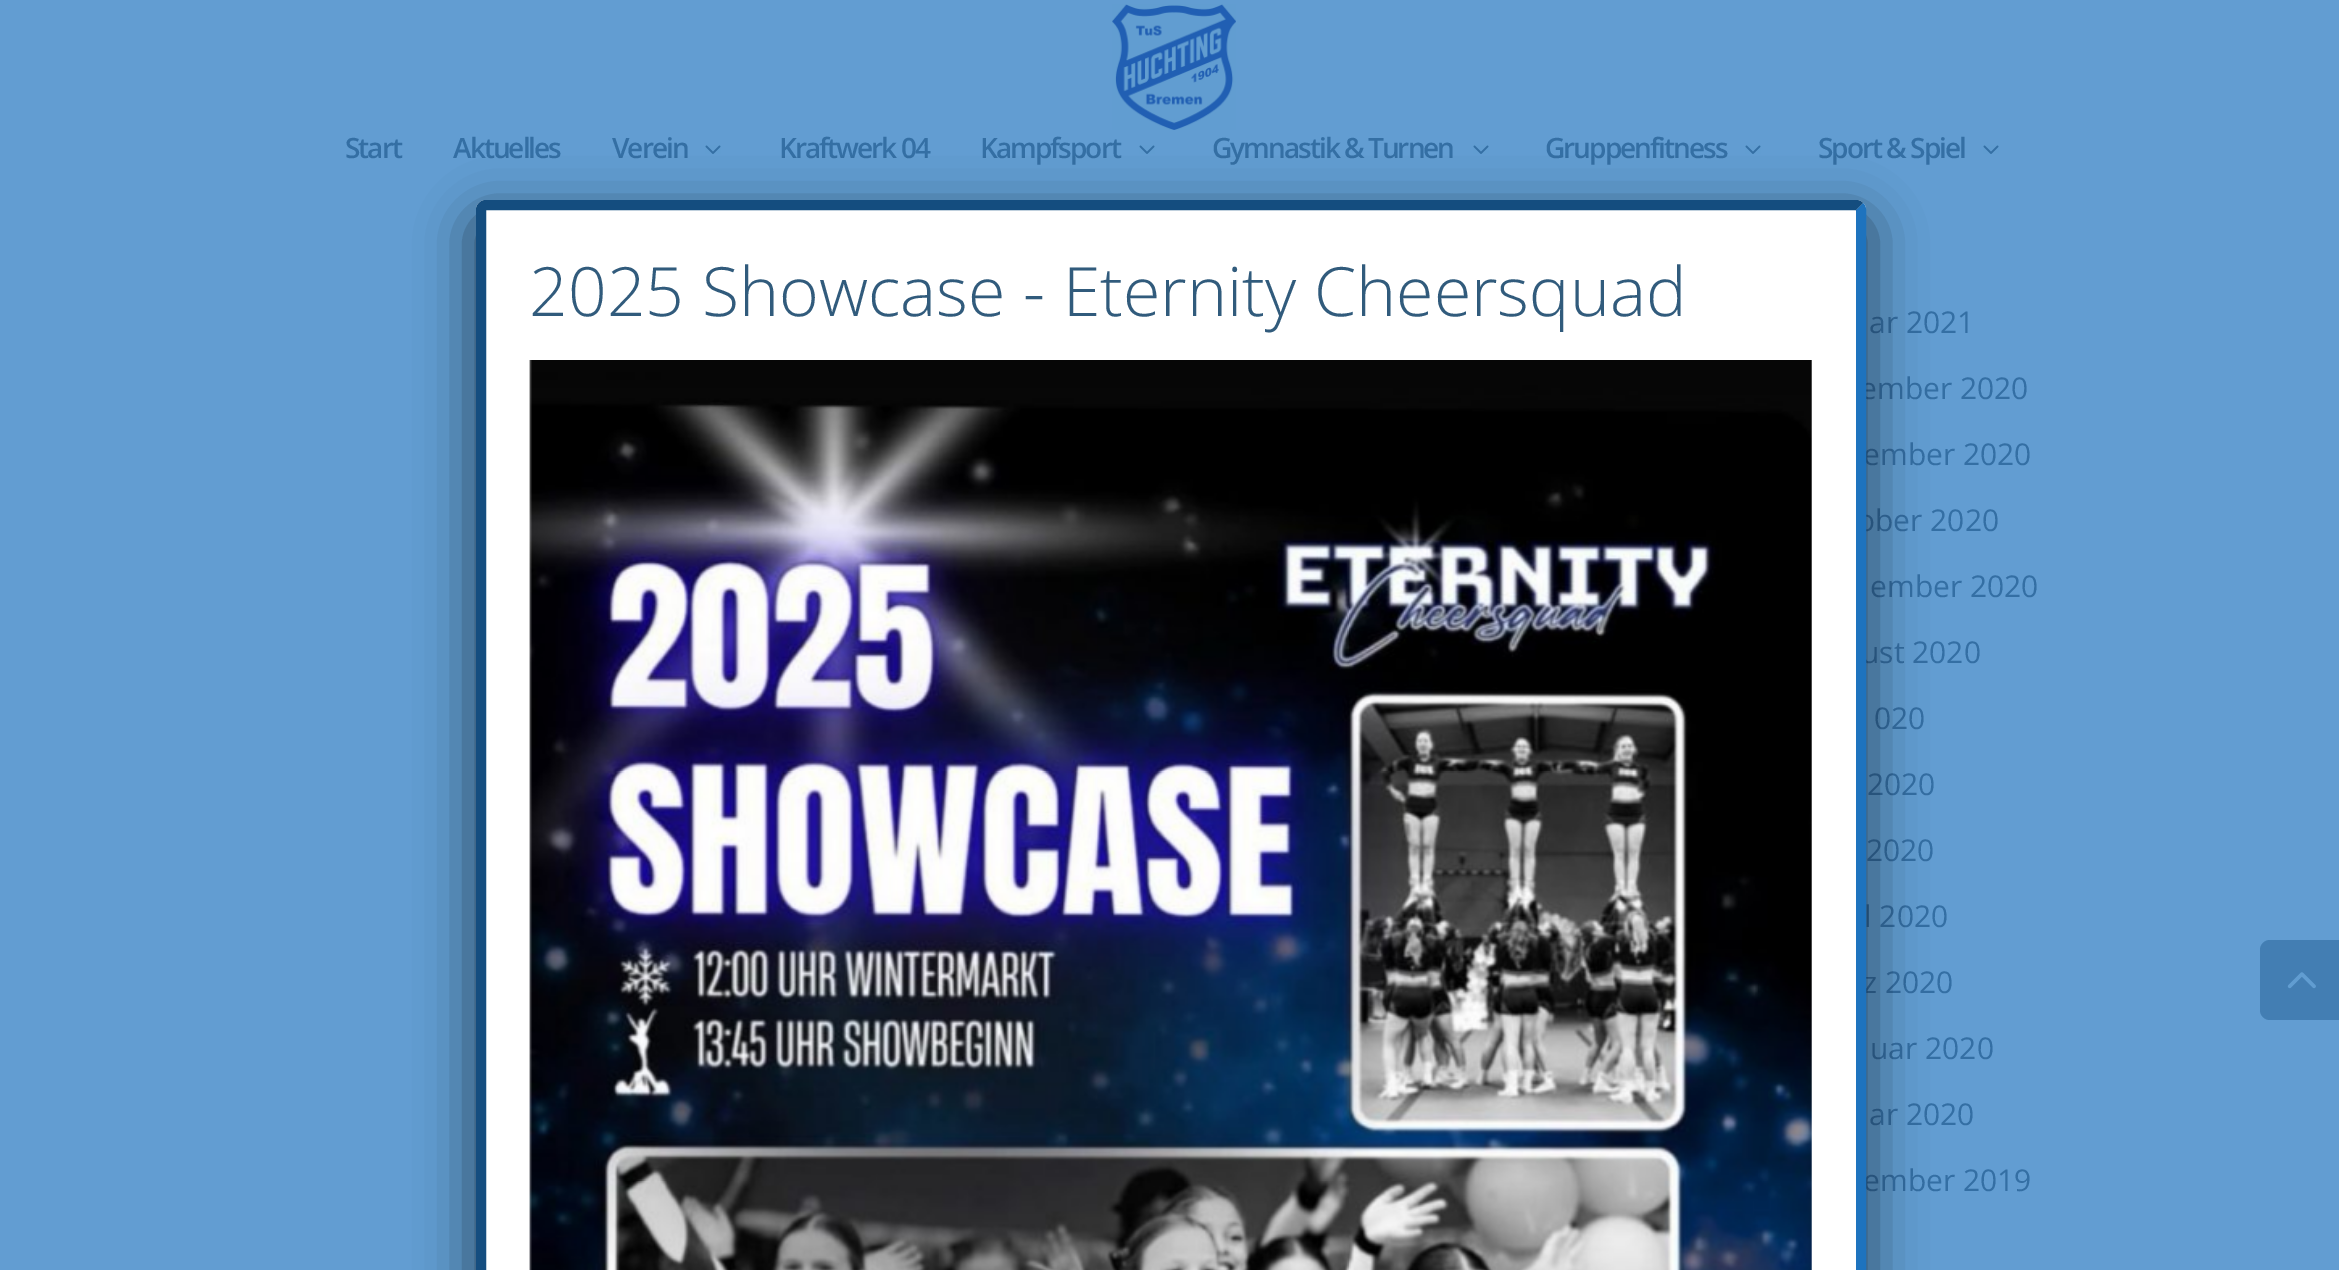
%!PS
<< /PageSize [2339 1270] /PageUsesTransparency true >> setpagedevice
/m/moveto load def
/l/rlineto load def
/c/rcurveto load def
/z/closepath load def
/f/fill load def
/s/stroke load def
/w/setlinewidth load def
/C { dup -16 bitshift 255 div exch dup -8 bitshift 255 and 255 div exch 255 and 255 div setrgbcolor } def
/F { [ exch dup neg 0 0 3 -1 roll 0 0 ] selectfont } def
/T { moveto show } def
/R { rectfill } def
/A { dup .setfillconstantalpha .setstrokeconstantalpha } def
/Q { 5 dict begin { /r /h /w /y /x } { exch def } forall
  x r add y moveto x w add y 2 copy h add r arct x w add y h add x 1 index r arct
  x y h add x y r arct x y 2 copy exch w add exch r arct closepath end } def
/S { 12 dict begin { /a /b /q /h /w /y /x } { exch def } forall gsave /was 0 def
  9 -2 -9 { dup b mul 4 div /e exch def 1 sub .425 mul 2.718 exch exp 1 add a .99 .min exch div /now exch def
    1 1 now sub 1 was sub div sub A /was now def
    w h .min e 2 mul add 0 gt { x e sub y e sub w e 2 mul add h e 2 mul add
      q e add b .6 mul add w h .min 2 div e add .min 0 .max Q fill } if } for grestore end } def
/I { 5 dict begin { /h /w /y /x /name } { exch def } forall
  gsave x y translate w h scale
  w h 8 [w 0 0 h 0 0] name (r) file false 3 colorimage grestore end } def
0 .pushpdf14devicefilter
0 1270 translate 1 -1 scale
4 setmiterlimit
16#629DD2 C
0 0 2339 1270 R
(1.rgb) 1112 4 124 126 I
/OpenSans-SemiBold 28 F
16#346FA4 C
345 158 m -2 0 (Start) ashow
453 158 m -2 0 (Aktuelles) ashow
612 158 m -2 0 (Verein) ashow
(2.rgb) 705 145 16 9 I
779 158 m -2 0 (Kraftwerk 04) ashow
980 158 m -2 0 (Kampfsport) ashow
(2.rgb) 1139 145 16 9 I
1212 158 m -2 0 (Gymnastik & Turnen) ashow
(2.rgb) 1473 145 16 9 I
1545 158 m -2 0 (Gruppenfitness) ashow
(2.rgb) 1745 145 16 9 I
1818 158 m -2 0 (Sport & Spiel) ashow
(2.rgb) 1983 145 16 9 I
/OpenSans-Regular 30 F
(ar 2021) 1869 333 T
(ember 2020) 1860 399 T
(ember 2020) 1863 465 T
(ober 2020) 1857 531 T
(ember 2020) 1870 597 T
(ust 2020) 1861 663 T
(020) 1874 729 T
(2020) 1867 795 T
(2020) 1866 861 T
(l 2020) 1864 927 T
(z 2020) 1863 993 T
(uar 2020) 1870 1059 T
(ar 2020) 1869 1125 T
(ember 2019) 1863 1191 T
16#437EB3 C
2270 940 m 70 0 l 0 80 l -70 0 l -5.5 0 -10 -4.5 -10 -10 c 0 -60 l 0 -5.5 4.5 -10 10 -10 c z f
(3.rgb) 2287 972 29 17 I
16#020202 C
468 212 1406 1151 18 25 .5 S
16#FFFFFF C
486 200 m 1370 0 l 5.5 0 10 4.5 10 10 c 0 1060 l -1390 0 l 0 -1060 l 0 -5.5 4.5 -10 10 -10 c z f
16#1E73BE C
10 w
1859.5 206.5 m 1 1 1.5 2 1.5 3.5 c 0 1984 l 0 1.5 -.5 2.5 -1.5 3.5 c -1 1 -2 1.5 -3.5 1.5 c -1370 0 l -1.5 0 -2.5 -.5 -3.5 -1.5 c s
16#144D7F C
482.5 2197.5 m -1 -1 -1.5 -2 -1.5 -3.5 c 0 -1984 l 0 -1.5 .5 -2.5 1.5 -3.5 c 1 -1 2 -1.5 3.5 -1.5 c 1370 0 l 1.5 0 2.5 .5 3.5 1.5 c s
/OpenSans-Light 68 F
16#315B7C C
(2025 Showcase - Eternity Cheersquad) 529 316 T
(4.rgb) 529 360 1283 910 I
.poppdf14devicefilter showpage
